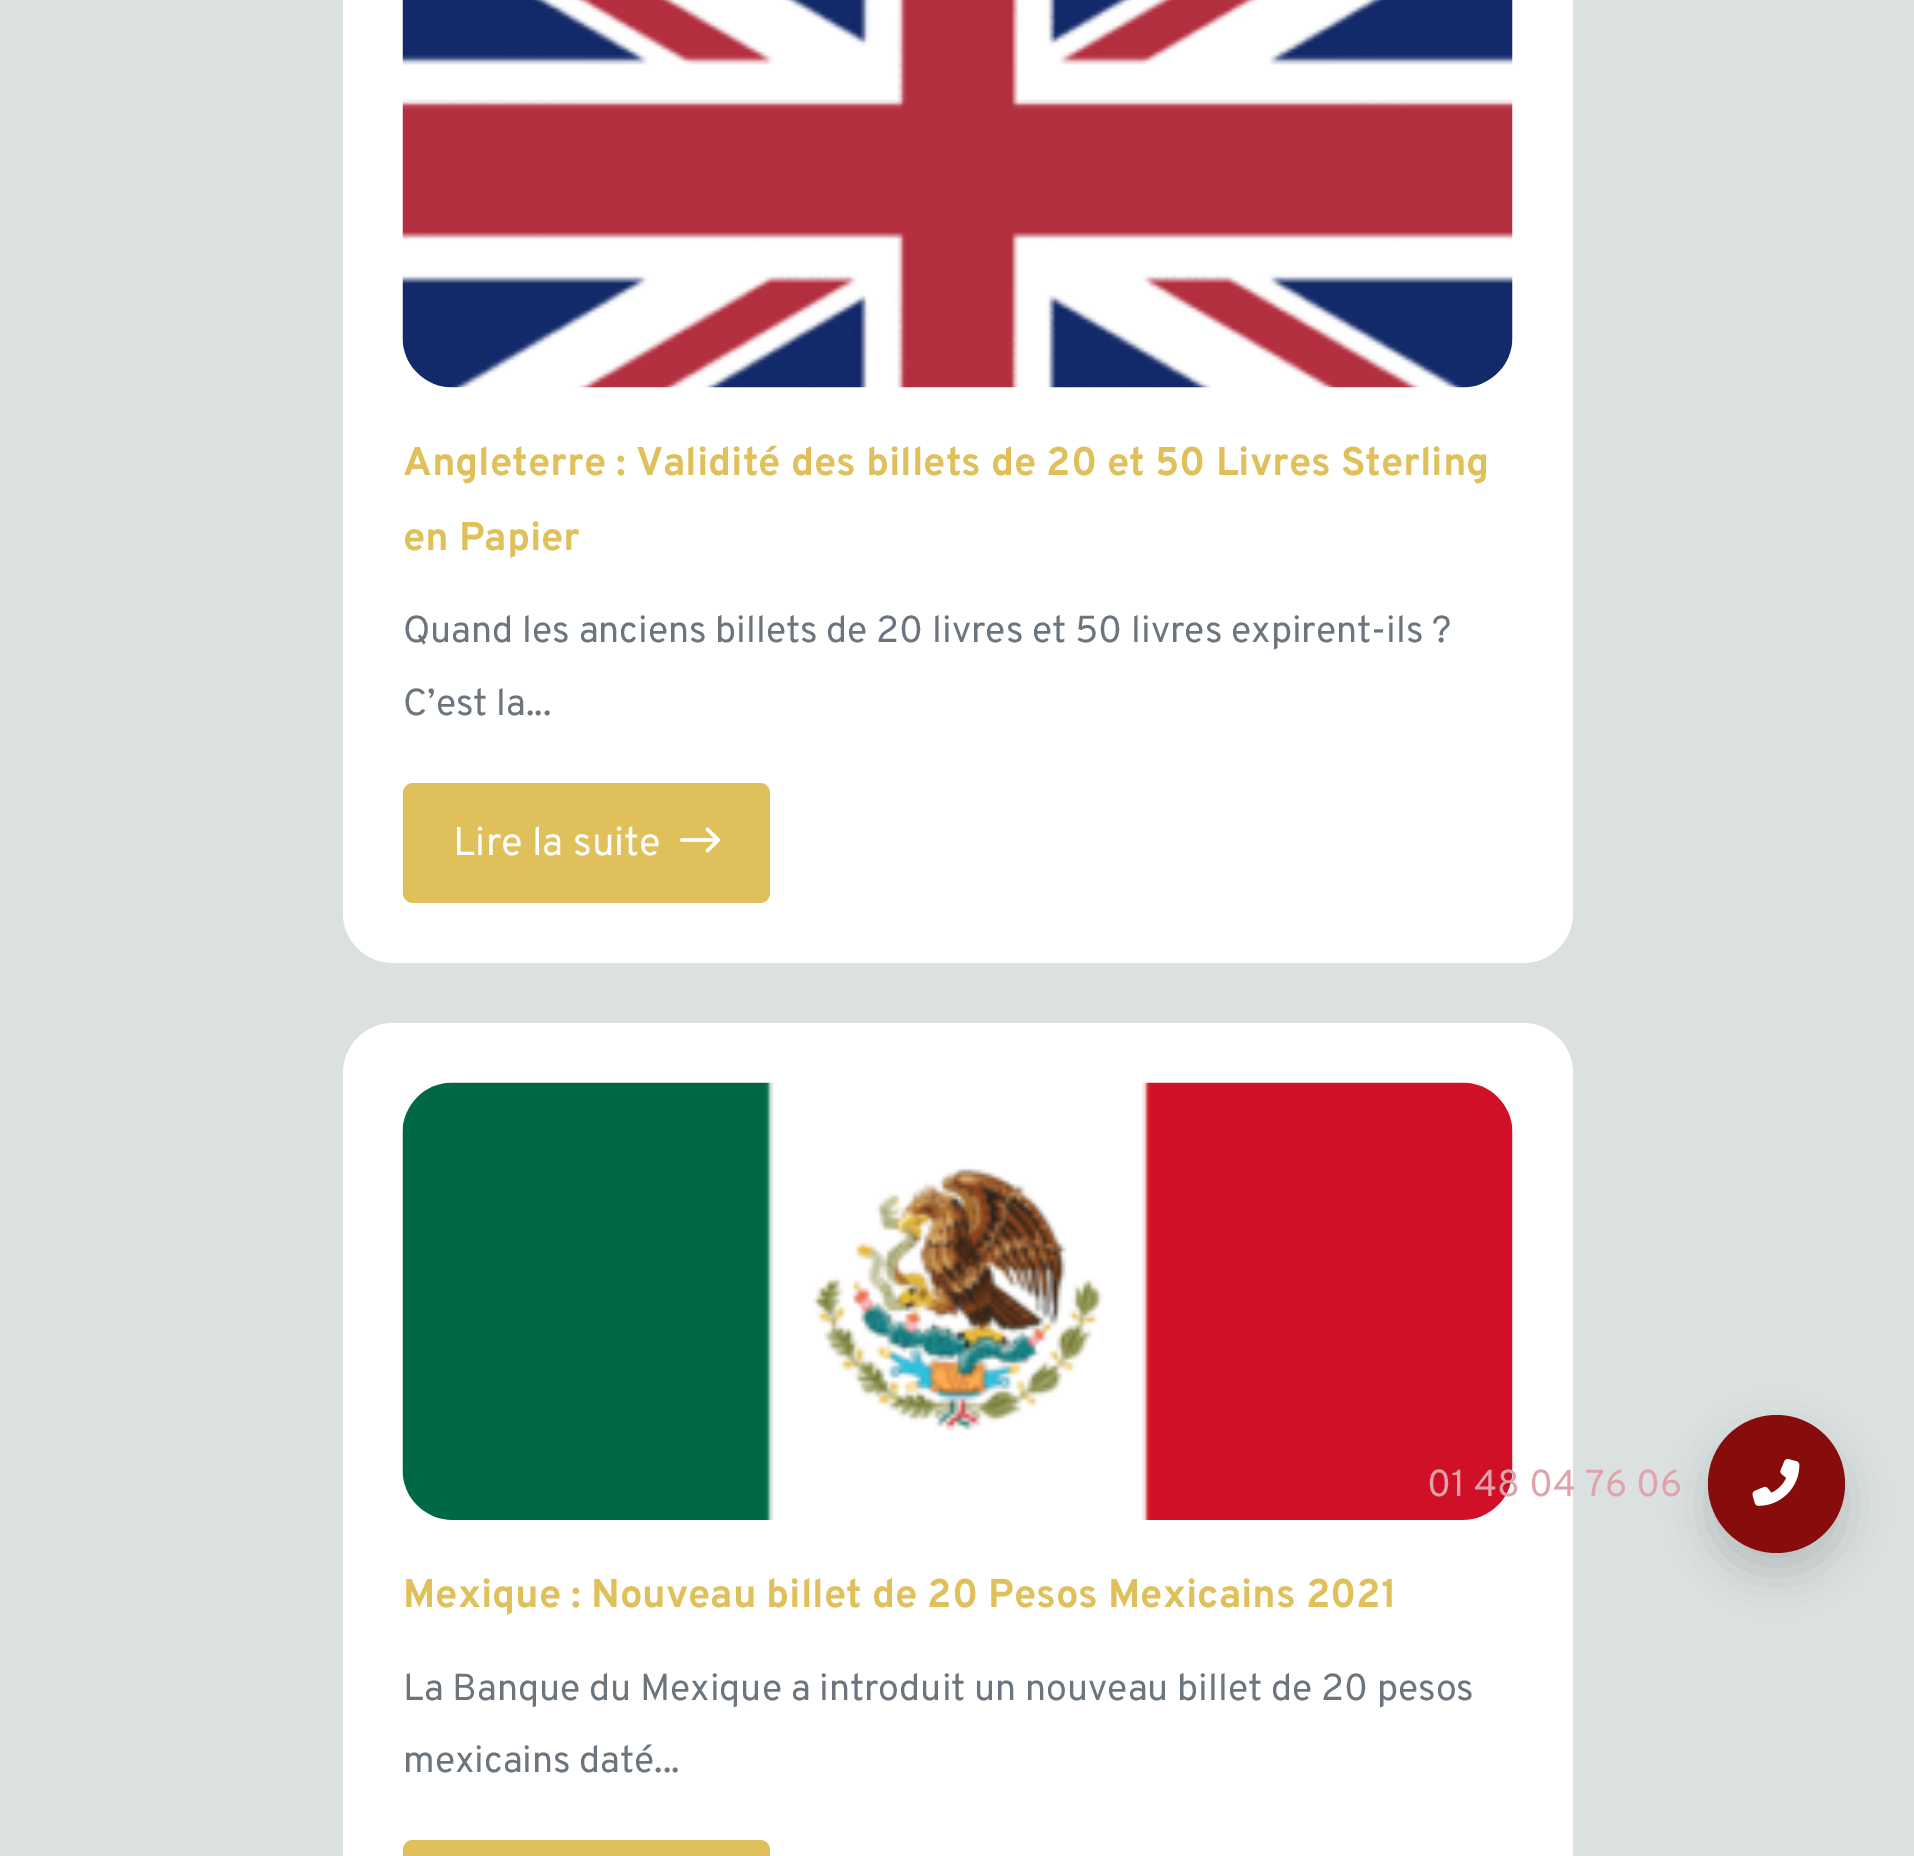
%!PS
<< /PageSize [1914 1856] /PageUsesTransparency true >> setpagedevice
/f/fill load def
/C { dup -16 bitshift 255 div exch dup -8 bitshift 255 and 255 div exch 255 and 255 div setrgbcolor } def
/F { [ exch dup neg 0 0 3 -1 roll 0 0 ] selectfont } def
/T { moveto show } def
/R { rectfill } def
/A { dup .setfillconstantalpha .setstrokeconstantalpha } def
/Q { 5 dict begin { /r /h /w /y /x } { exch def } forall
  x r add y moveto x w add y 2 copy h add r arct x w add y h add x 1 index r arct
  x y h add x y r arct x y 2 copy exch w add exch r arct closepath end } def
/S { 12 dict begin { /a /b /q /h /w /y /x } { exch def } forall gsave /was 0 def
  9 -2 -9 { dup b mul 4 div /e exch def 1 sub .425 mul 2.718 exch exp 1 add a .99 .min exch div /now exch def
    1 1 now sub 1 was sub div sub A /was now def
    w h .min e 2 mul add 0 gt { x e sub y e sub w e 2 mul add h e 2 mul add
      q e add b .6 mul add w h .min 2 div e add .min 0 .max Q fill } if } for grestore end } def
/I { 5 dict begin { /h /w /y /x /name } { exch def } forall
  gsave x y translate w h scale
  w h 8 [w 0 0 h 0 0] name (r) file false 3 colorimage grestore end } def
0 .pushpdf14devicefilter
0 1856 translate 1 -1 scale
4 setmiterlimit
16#DBE1E1 C
0 0 1914 1856 R
16#FFFFFF C
343 -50 1230 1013 50 Q f
(1.rgb) 402 0 1111 388 I
/Overpass-Bold 40 F
16#DFC05A C
(Angleterre : Validité des billets de 20 et 50 Livres Sterling) 403 475 T
(en Papier) 403 550 T
/Overpass-Regular 37.5 F
16#6C757D C
(Quand les anciens billets de 20 livres et 50 livres expirent-ils ?) 403 642 T
(C’est la...) 403 715 T
16#DFC05A C
403 783 367 120 10 Q f
/Overpass-Regular 40 F
16#FFFFFF C
(Lire la suite) 453 855 T
(2.rgb) 680 827 40 26 I
343 1023 1230 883 50 Q f
(3.rgb) 402 1082 1111 438 I
/Overpass-Bold 40 F
16#DFC05A C
(Mexique : Nouveau billet de 20 Pesos Mexicains 2021) 403 1607 T
/Overpass-Regular 37.5 F
16#6C757D C
(La Banque du Mexique a introduit un nouveau billet de 20 pesos) 403 1700 T
(mexicains daté...) 403 1772 T
16#DFC05A C
403 1840 367 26 10 Q f
16#000000 C
1708 1435 137 138 68.5 20 .15 S
16#870D0C C
1708 1415 137 138 68.5 Q f
16#E0A3AB C
(01 48 04 76 06) 1427 1496 T
(4.rgb) 1752 1459 48 47 I
.poppdf14devicefilter showpage
